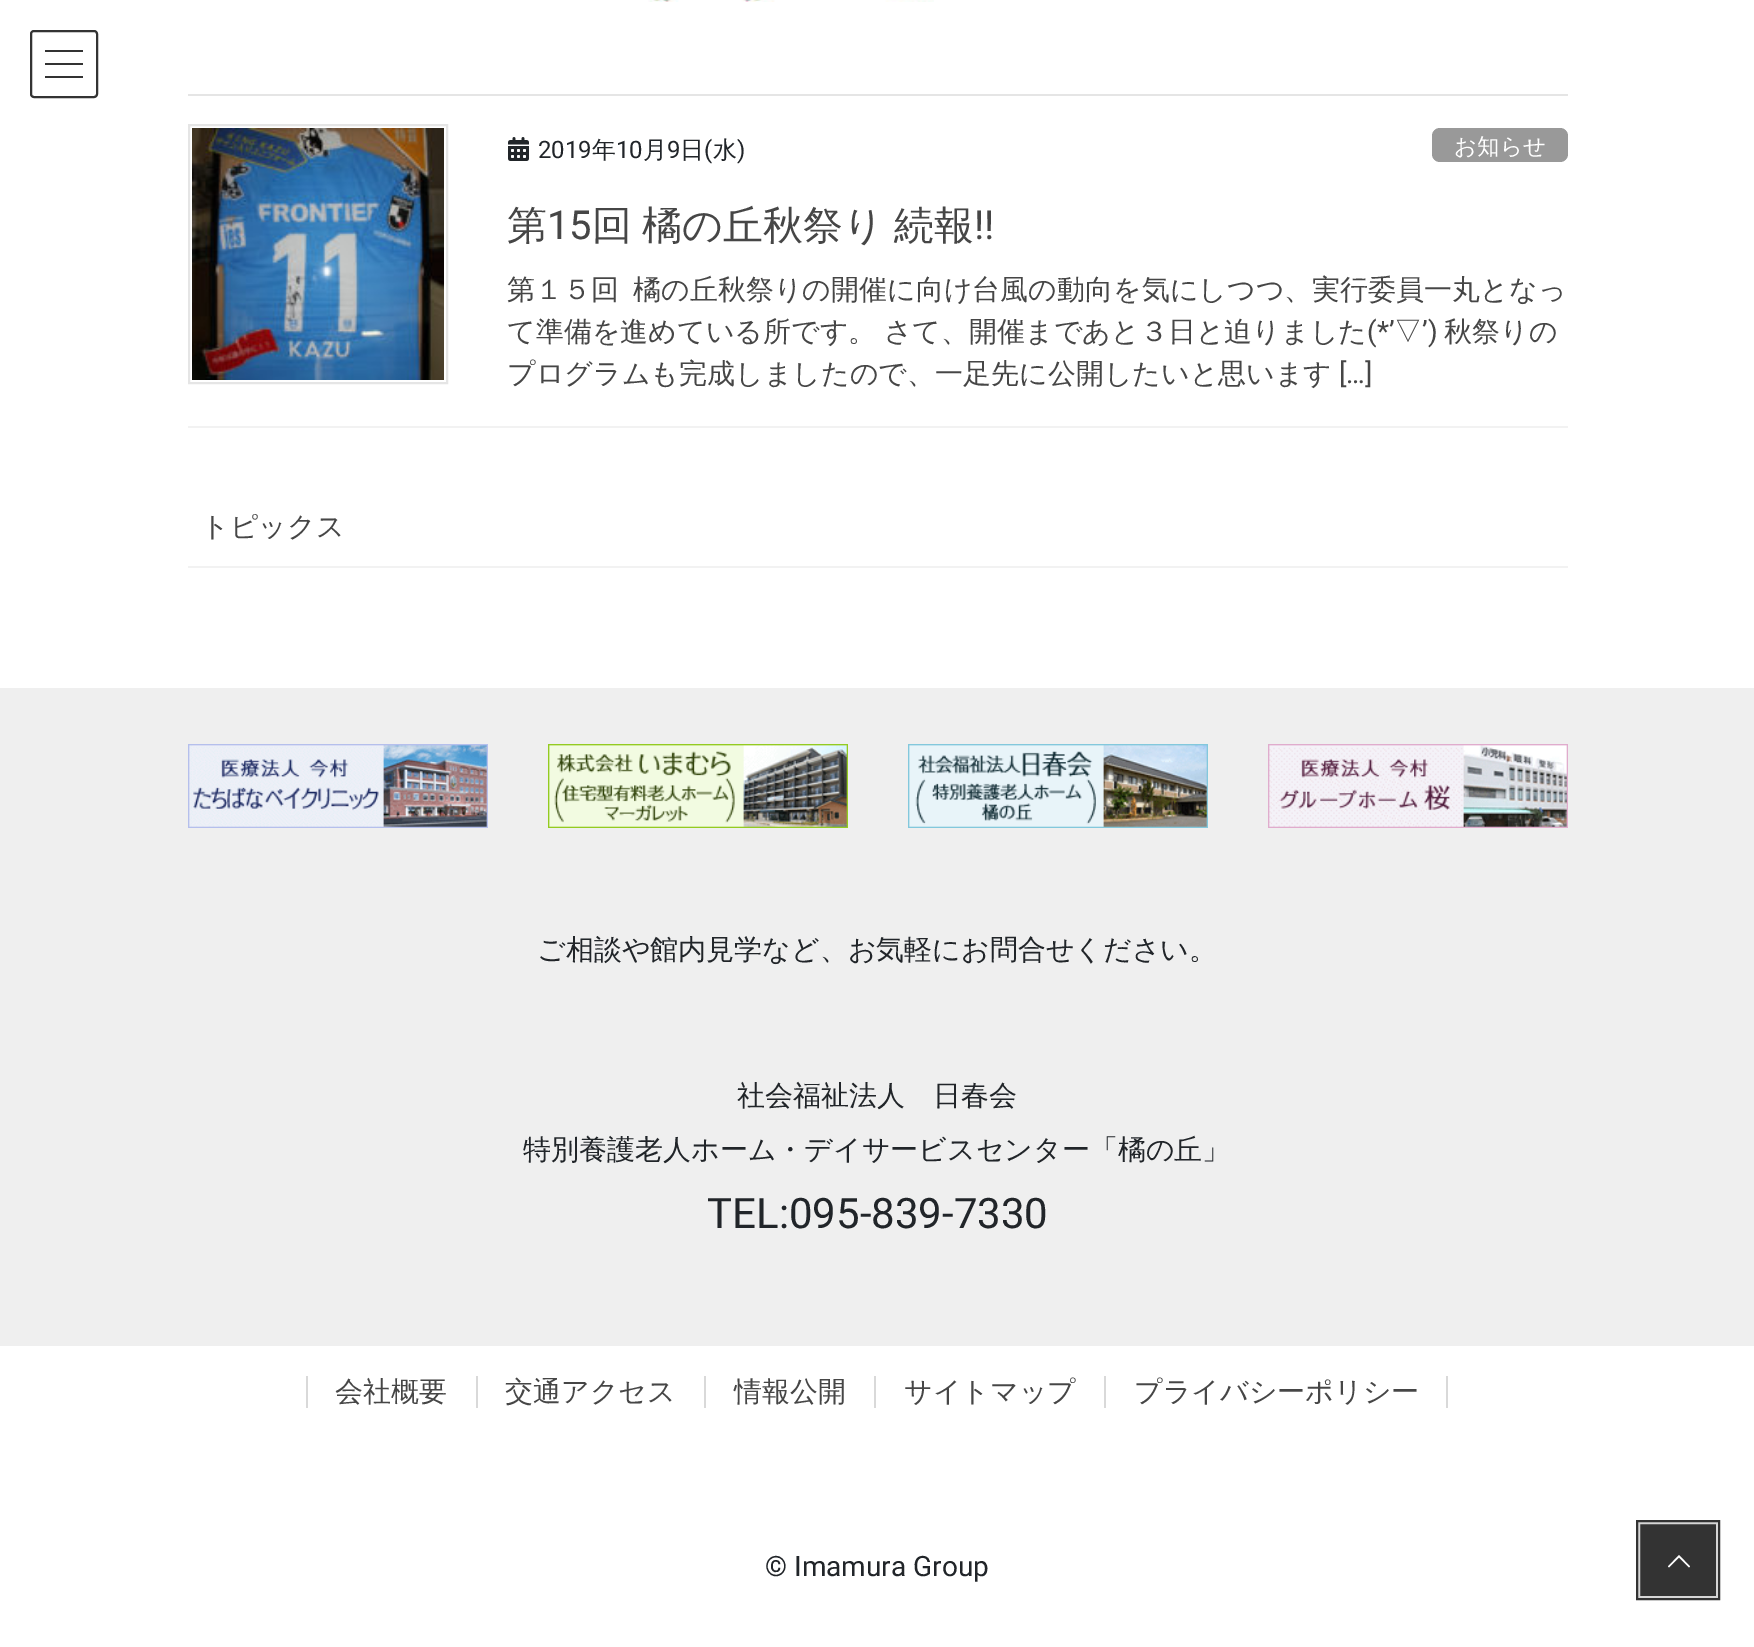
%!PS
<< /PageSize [1754 1647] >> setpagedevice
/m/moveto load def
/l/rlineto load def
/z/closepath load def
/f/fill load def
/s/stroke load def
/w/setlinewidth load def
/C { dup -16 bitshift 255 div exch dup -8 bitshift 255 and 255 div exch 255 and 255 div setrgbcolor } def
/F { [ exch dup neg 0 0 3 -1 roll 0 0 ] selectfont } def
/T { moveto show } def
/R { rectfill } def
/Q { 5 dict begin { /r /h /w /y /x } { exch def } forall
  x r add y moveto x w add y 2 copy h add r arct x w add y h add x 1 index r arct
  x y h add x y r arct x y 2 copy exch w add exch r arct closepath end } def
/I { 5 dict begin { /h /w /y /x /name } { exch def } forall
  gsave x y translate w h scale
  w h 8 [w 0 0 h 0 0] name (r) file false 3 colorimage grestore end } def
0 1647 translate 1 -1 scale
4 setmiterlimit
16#FFFFFF C
0 0 1754 1647 R
(1.rgb) 648 0 286 2 I
16#333333 C
45 50 38 2 R
45 63 38 2 R
45 76 38 2 R
2 w
31 31 66 66 3 Q s
16#E5E5E5 C
188 94 1380 2 R
16#F2F2F2 C
188 426 1380 2 R
16#E5E5E5 C
189 125 258 258 rectstroke
(2.rgb) 192 128 252 252 I
(3.rgb) 508 137 21 24 I
/Roboto-Regular 24 F
16#212529 C
(2019) 538 158 T
/WenQuanYiZenHei-Medium 24 F
(年) 592 158 T
/Roboto-Regular 24 F
(10) 616 158 T
/WenQuanYiZenHei-Medium 24 F
(月) 643 158 T
/Roboto-Regular 24 F
(9) 667 158 T
/WenQuanYiZenHei-Medium 24 F
(日) 680 158 T
/Roboto-Regular 24 F
(\() 704 158 T
/WenQuanYiZenHei-Medium 24 F
(水) 713 158 T
/Roboto-Regular 24 F
(\)) 737 158 T
16#999999 C
1432 128 136 34 8 Q f
/WenQuanYiZenHei-Medium 22.5 F
16#FFFFFF C
(お知らせ) 1454 154 T
/WenQuanYiZenHei-Medium 40 F
16#464646 C
(第) 507 239 T
/Roboto-Regular 40 F
(15) 547 239 T
/WenQuanYiZenHei-Medium 40 F
592 239 m -2 0 32 (回 橘の丘秋祭り 続報) widthshow
/Roboto-Regular 40 F
(!!) 974 239 T
/WenQuanYiZenHei-Medium 28 F
(第１５回) 507 299 T
(橘の丘秋祭りの開催に向け台風の動向を気にしつつ、実行委員一丸となっ) 633 299 T
507 341 m -1 0 32 (て準備を進めている所です。 さて、開催まであと３日と迫りました) widthshow
/Roboto-Regular 28 F
(\(*’) 1367 341 T
/WenQuanYiZenHei-Medium 28 F
(▽) 1394 341 T
/Roboto-Regular 28 F
(’\)) 1422 341 T
/WenQuanYiZenHei-Medium 28 F
(秋祭りの) 1444 341 T
(プログラムも完成しましたので、一足先に公開したいと思います) 507 383 T
/Roboto-Regular 28 F
([…]) 1339 383 T
16#F2F2F2 C
188 566 1380 2 R
/WenQuanYiZenHei-Medium 28 F
16#464646 C
(トピックス) 201 536 T
16#EFEFEF C
0 688 1754 658 R
(4.rgb) 188 744 300 84 I
(5.rgb) 548 744 300 84 I
(6.rgb) 908 744 300 84 I
(7.rgb) 1268 744 300 84 I
16#212529 C
(ご相談や館内見学など、お気軽にお問合せください。) 537 959 T
(社会福祉法人　日春会) 737 1105 T
(特別養護老人ホーム・デイサービスセンター「橘の丘」) 523 1159 T
/Roboto-Regular 42 F
(TEL:095-839-7330) 707 1228 T
/WenQuanYiZenHei-Medium 28 F
16#464646 C
(会社概要) 335 1401 T
16#D9D9D9 C
306 1376 2 32 R
16#464646 C
(交通アクセス) 505 1401 T
16#D9D9D9 C
476 1376 2 32 R
16#464646 C
(情報公開) 734 1401 T
16#D9D9D9 C
704 1376 2 32 R
16#464646 C
(サイトマップ) 904 1401 T
16#D9D9D9 C
874 1376 2 32 R
16#464646 C
(プライバシーポリシー) 1134 1401 T
16#D9D9D9 C
1446 1376 2 32 R
1104 1376 2 32 R
/Roboto-Regular 28 F
16#212529 C
(© Imamura Group) 765 1576 T
16#333333 C
1640 1524 76 72 R
16#FFFFFF C
1690 1566.5 m -1 1 l -10 -10 l -10 10 l -1 -1 l 11 -11.5 l z f
16#D6D6D6 C
1639 1523 78 74 rectstroke
16#333333 C
1637 1521 82 78 rectstroke
showpage
